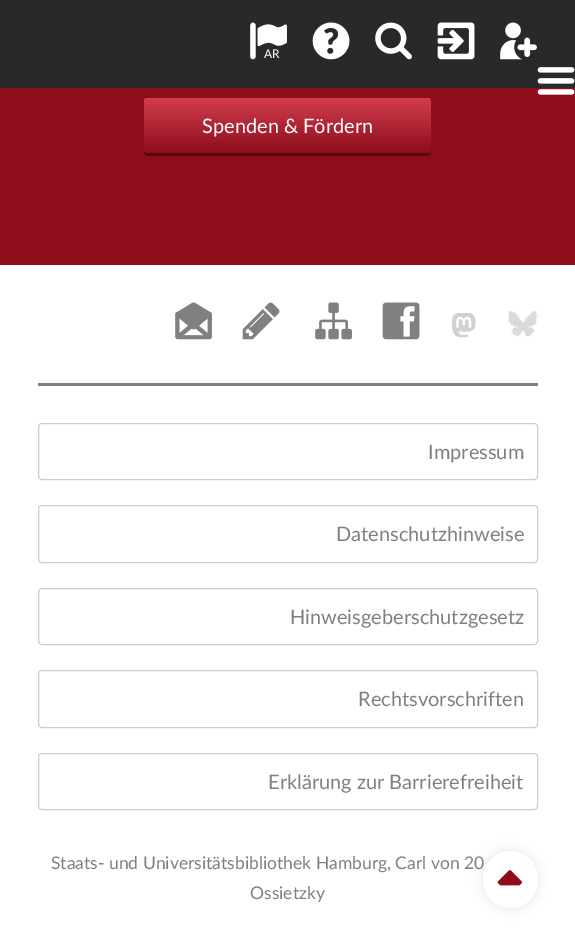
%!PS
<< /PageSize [575 945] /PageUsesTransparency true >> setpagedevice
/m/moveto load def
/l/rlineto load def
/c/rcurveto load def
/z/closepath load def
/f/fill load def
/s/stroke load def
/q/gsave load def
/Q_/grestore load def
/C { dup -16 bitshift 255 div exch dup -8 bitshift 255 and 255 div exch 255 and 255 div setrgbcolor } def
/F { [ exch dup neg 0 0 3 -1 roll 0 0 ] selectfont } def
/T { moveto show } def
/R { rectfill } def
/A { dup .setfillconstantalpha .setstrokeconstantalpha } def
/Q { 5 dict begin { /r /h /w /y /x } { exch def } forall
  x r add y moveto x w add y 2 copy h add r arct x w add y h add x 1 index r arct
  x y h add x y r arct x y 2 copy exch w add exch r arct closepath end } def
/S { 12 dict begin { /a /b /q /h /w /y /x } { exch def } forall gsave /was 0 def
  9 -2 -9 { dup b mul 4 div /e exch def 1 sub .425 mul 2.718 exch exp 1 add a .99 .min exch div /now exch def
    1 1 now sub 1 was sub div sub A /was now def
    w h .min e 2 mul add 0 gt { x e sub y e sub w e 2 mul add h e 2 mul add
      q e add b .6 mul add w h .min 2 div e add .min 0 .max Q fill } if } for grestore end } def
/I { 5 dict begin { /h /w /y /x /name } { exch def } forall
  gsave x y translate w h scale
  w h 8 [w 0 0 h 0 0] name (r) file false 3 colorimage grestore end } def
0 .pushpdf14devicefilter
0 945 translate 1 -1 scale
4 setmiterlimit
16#FFFFFF C
0 0 575 945 R
16#292929 C
0 0 575 88 R
(1.rgb) 250 22 37 38 I
/Lato-Regular 12 F
16#FFFFFF C
(AR) 264 58 T
(2.rgb) 312 22 38 38 I
(3.rgb) 375 22 37 38 I
(4.rgb) 437 22 38 38 I
(5.rgb) 500 22 37 38 I
16#8D0D1B C
0 88 575 177 R
(6.rgb) 537 67 38 28 I
16#560710 C
144 150 m 0 2 l 0 2 2 4 4 4 c 279 0 l 2 0 4 -2 4 -4 c 0 -2 l -1 2 -2 2 -3 2 c -280 0 l -2 0 -3 0 -4 -2 c z f
q 144 98 287 55 4 Q clip newpath
<< /ShadingType 2 /ColorSpace /DeviceRGB /Coords [288 153 288 98] /Extend [true true] /Function << /FunctionType 2 /Domain [0 1] /C0 [.553 .051 .11] /C1 [.824 .239 .306] /N 1 >> >> shfill Q_
/Lato-Regular 20 F
16#FFFFFF C
(Spenden & Fördern) 202 133 T
16#808080 C
38 383 500 3 R
(7.rgb) 175 302 37 38 I
(8.rgb) 242 302 38 38 I
(9.rgb) 315 302 37 38 I
(10.rgb) 382 302 38 38 I
(11.rgb) 452 313 24 25 I
(12.rgb) 508 311 30 26 I
16#CCCCCC C
38.5 423.5 499 56 3.5 Q s
16#808080 C
(Impressum) 428 459 T
16#CCCCCC C
38.5 505.5 499 57 3.5 Q s
16#808080 C
(Datenschutzhinweise) 336 541 T
16#CCCCCC C
38.5 588.5 499 56 3.5 Q s
16#808080 C
(Hinweisgeberschutzgesetz) 290 624 T
16#CCCCCC C
38.5 670.5 499 57 3.5 Q s
16#808080 C
(Rechtsvorschriften) 358 706 T
16#CCCCCC C
38.5 753.5 499 56 3.5 Q s
16#808080 C
(Erklärung zur Barrierefreiheit) 268 789 T
/Lato-Regular 17.5 F
(Staats- und Universitätsbibliothek Hamburg, Carl von 20) 51 869 T
(Ossietzky) 250 899 T
16#000000 C
483 851 55 57 27.5 6 .1 S
16#FFFFFF C
483 851 55 57 27.5 Q f
(13.rgb) 497 870 26 16 I
.poppdf14devicefilter showpage
